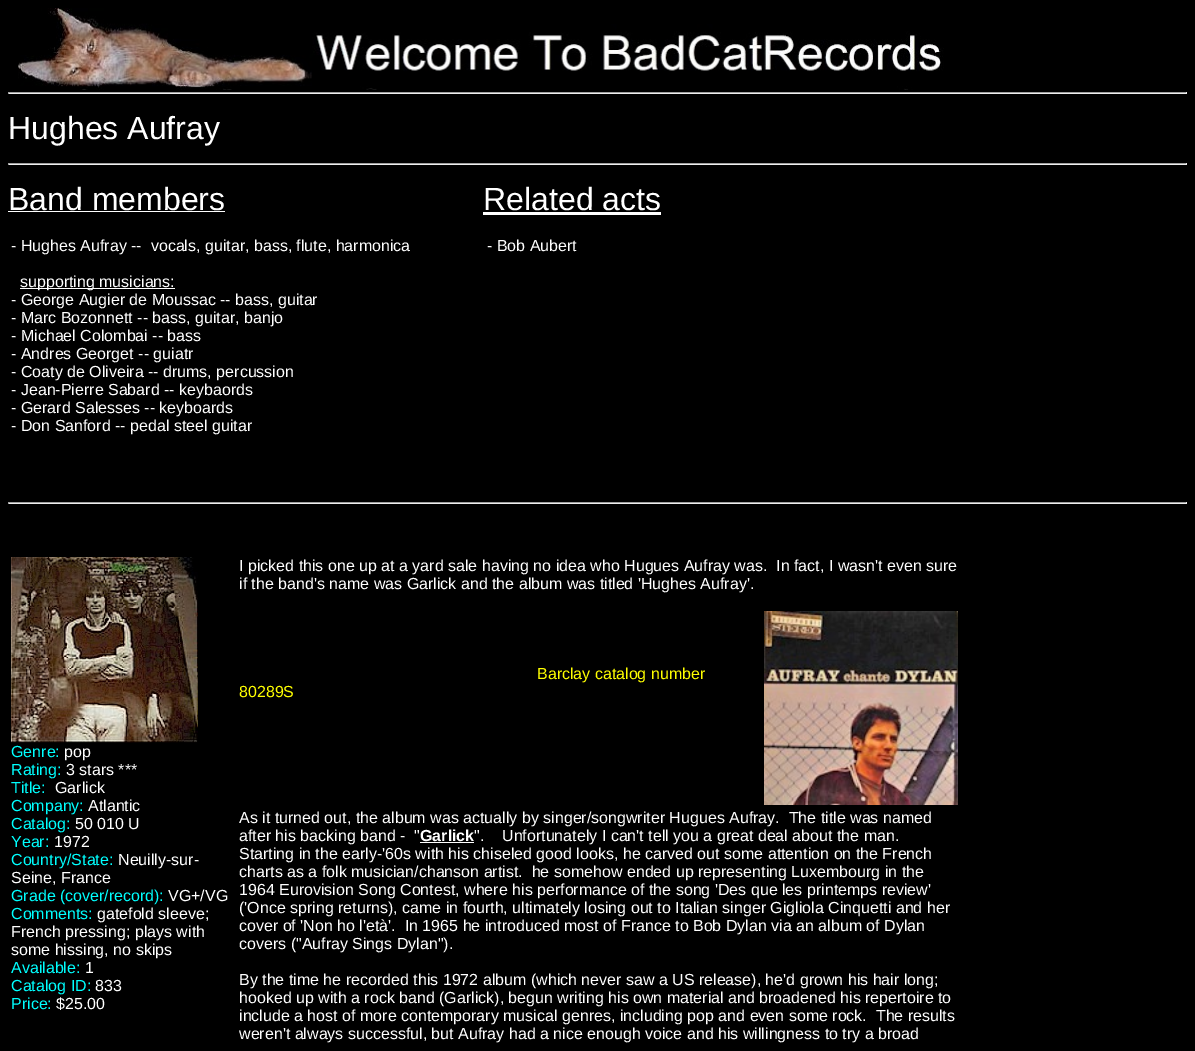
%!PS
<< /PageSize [1195 1051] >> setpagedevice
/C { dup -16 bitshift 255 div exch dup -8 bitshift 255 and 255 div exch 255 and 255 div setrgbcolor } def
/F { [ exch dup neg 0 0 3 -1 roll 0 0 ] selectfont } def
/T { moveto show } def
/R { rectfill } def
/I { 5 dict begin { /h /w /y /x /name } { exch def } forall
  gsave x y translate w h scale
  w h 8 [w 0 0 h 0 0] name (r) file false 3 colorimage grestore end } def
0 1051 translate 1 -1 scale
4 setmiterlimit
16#000000 C
0 0 1195 1051 R
(1.rgb) 18 8 926 82 I
16#9F9F9F C
8 92 1179 1 R
16#EEEEEE C
1186 92 1 2 R
8 93 1179 1 R
16#9F9F9F C
8 92 1 2 R
/LiberationSans-Regular 32 F
16#FFFFFF C
(Hughes Aufray) 8 139 T
16#9F9F9F C
8 163 1179 1 R
16#EEEEEE C
1186 163 1 2 R
8 164 1179 1 R
16#9F9F9F C
8 163 1 2 R
16#FFFFFF C
(Band members) 8 210 T
8 211 217 1 R
(Related acts) 483 210 T
483 212 178 3 R
/LiberationSans-Regular 16 F
(- Hughes Aufray --  vocals, guitar, bass, flute, harmonica) 11 251 T
20 288 155 1 R
(supporting musicians:) 20 287 T
(- George Augier de Moussac -- bass, guitar) 11 305 T
(- Marc Bozonnett -- bass, guitar, banjo) 11 323 T
(- Michael Colombai -- bass) 11 341 T
(- Andres Georget -- guiatr) 11 359 T
(- Coaty de Oliveira -- drums, percussion) 11 377 T
(- Jean-Pierre Sabard -- keybaords) 11 395 T
(- Gerard Salesses -- keyboards) 11 413 T
(- Don Sanford -- pedal steel guitar) 11 431 T
(- Bob Aubert) 487 251 T
16#9F9F9F C
8 502 1179 1 R
16#EEEEEE C
1186 502 1 2 R
8 503 1179 1 R
16#9F9F9F C
8 502 1 2 R
(2.rgb) 11 557 187 186 I
16#00FFFF C
(Genre:) 11 757 T
16#FFFFFF C
(pop) 64 757 T
16#00FFFF C
(Rating:) 11 775 T
16#FFFFFF C
(3 stars ***) 66 775 T
16#00FFFF C
(Title:) 11 793 T
16#FFFFFF C
(Garlick) 55 793 T
16#00FFFF C
(Company:) 11 811 T
16#FFFFFF C
(Atlantic) 88 811 T
16#00FFFF C
(Catalog:) 11 829 T
16#FFFFFF C
(50 010 U) 75 829 T
16#00FFFF C
(Year:) 11 847 T
16#FFFFFF C
(1972) 54 847 T
16#00FFFF C
(Country/State:) 11 865 T
16#FFFFFF C
(Neuilly-sur-) 118 865 T
(Seine, France) 11 883 T
16#00FFFF C
(Grade \(cover/record\):) 11 901 T
16#FFFFFF C
(VG+/VG) 168 901 T
16#00FFFF C
(Comments:) 11 919 T
16#FFFFFF C
(gatefold sleeve;) 97 919 T
(French pressing; plays with) 11 937 T
(some hissing, no skips) 11 955 T
16#00FFFF C
(Available:) 11 973 T
16#FFFFFF C
(1) 85 973 T
16#00FFFF C
(Catalog ID:) 11 991 T
16#FFFFFF C
(833) 95 991 T
16#00FFFF C
(Price:) 11 1009 T
16#FFFFFF C
($25.00) 56 1009 T
(I picked this one up at a yard sale having no idea who Hugues Aufray was.  In fact, I wasn't even sure) 239 571 T
(if the band's name was Garlick and the album was titled 'Hughes Aufray'.) 239 589 T
16#FFFF00 C
(Barclay catalog number) 537 679 T
(80289S) 239 697 T
(3.rgb) 764 611 194 194 I
16#FFFFFF C
(As it turned out, the album was actually by singer/songwriter Hugues Aufray.  The title was named) 239 823 T
(after his backing band -  ") 239 841 T
420 842 54 1 R
/LiberationSans-Bold 16 F
(Garlick) 420 841 T
/LiberationSans-Regular 16 F
(".) 474 841 T
(Unfortunately I can't tell you a great deal about the man.) 502 841 T
(Starting in the early-'60s with his chiseled good looks, he carved out some attention on the French) 239 859 T
(charts as a folk musician/chanson artist.  he somehow ended up representing Luxembourg in the) 239 877 T
(1964 Eurovision Song Contest, where his performance of the song 'Des que les printemps review') 239 895 T
(\('Once spring returns\), came in fourth, ultimately losing out to Italian singer Gigliola Cinquetti and her) 239 913 T
(cover of 'Non ho l'età'.  In 1965 he introduced most of France to Bob Dylan via an album of Dylan) 239 931 T
(covers \("Aufray Sings Dylan"\).) 239 949 T
(By the time he recorded this 1972 album \(which never saw a US release\), he'd grown his hair long;) 239 985 T
(hooked up with a rock band \(Garlick\), begun writing his own material and broadened his repertoire to) 239 1003 T
(include a host of more contemporary musical genres, including pop and even some rock.  The results) 239 1021 T
(weren't always successful, but Aufray had a nice enough voice and his willingness to try a broad) 239 1039 T
showpage
